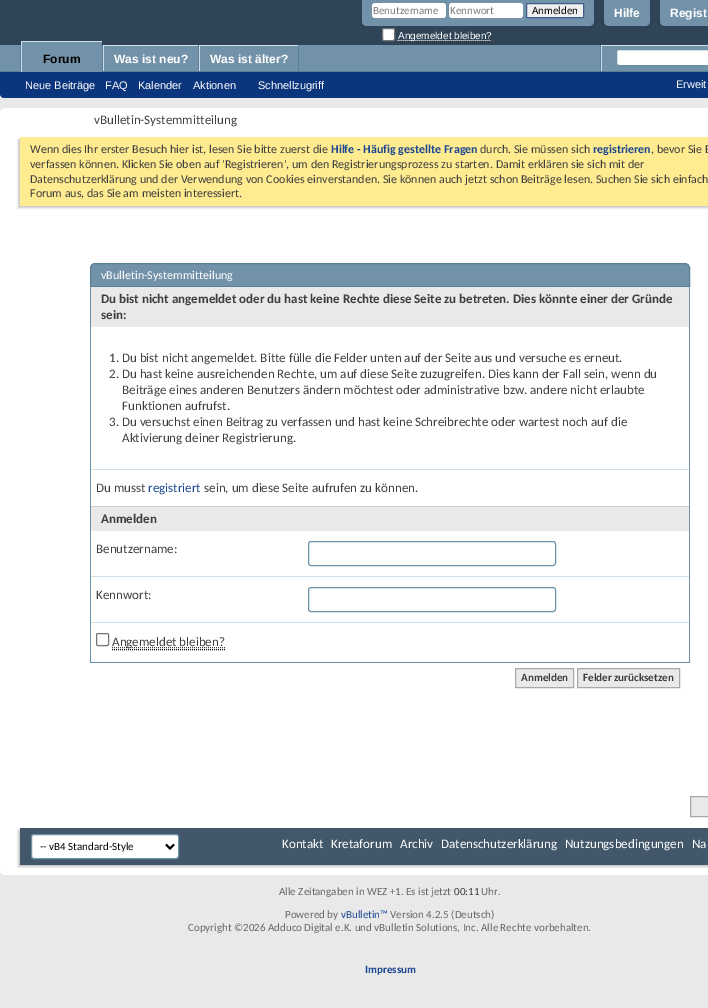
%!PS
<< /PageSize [708 1008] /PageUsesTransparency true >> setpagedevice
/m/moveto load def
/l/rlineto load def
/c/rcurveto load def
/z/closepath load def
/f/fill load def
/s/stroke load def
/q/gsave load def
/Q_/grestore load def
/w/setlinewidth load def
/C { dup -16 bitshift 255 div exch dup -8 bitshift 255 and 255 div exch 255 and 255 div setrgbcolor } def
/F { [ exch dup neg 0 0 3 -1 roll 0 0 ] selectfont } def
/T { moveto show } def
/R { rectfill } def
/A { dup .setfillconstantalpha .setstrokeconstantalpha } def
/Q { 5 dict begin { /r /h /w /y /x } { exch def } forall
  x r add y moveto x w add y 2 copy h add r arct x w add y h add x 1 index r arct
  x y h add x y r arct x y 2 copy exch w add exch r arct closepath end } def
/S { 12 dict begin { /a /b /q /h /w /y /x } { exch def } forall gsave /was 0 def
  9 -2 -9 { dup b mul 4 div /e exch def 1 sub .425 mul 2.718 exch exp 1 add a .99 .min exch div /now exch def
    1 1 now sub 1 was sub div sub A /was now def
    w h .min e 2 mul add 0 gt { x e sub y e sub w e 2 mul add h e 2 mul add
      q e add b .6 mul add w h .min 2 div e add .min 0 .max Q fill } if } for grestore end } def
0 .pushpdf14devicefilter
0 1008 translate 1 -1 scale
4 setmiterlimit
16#E9E9E9 C
0 0 708 1008 R
16#2F4456 C
0 0 m 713 0 l 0 93 l 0 3 -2 5 -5 5 c -703 0 l -3 0 -5 -2 -5 -5 c z f
16#7192A8 C
362 0 m 232 0 l 0 21 l 0 3 -2 5 -5 5 c -222 0 l -3 0 -5 -2 -5 -5 c z f
16#FFFFFF C
372 3 74 15 3 Q f
/Carlito-Regular 11 F
16#777777 C
(Benutzername) 373 14 T
16#FFFFFF C
449 3 74 15 3 Q f
16#777777 C
(Kennwort) 450 14 T
16#EFEFEF C
526.5 3.5 m 57 0 l 0 14 l -57 0 l z q f Q_
16#415D8D C
s
16#000000 C
(Anmelden) 532 14 T
16#FFFFFF C
382.5 28.5 12 12 1.5 Q q f Q_
16#767676 C
s
16#000000 C
[1 1] 0 setdash
398 41.5 m 94 0 l s
16#FFFFFF C
397.5 40.5 m 94 0 l s
/LiberationSans-Regular 10 F
(Angemeldet bleiben?) 398 39 T
16#7192A8 C
604 0 m 46 0 l 0 21 l 0 3 -2 5 -5 5 c -36 0 l -3 0 -5 -2 -5 -5 c z f
/LiberationSans-Bold 12 F
16#FFFFFF C
(Hilfe) 614 17 T
16#7192A8 C
660 0 m 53 0 l 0 21 l 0 3 -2 5 -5 5 c -43 0 l -3 0 -5 -2 -5 -5 c z f
16#FFFFFF C
(Regist) 670 17 T
16#0B367D C
0 45 m 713 0 l 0 48 l 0 3 -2 5 -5 5 c -703 0 l -3 0 -5 -2 -5 -5 c z f
16#7192A8 C
0 45 708 26 R
16#5A7F97 C
102 45 1 26 R
20 45 1 26 R
198 45 1 27 R
16#CEDFEB C
103 45 95 1 R
103 45 1 27 R
16#5A7F97 C
298 45 1 27 R
16#CEDFEB C
199 45 99 1 R
199 45 1 27 R
16#5A7F97 C
0 71 708 1 R
16#7192A8 C
22 42 80 30 R
16#CEDFEB C
21 41 81 1 R
21 41 1 31 R
16#000000 C
(Forum) 43 63 T
16#FFFFFF C
(Was ist neu?) 114 63 T
(Was ist älter?) 210 63 T
/LiberationSans-Regular 11 F
(Neue Beiträge) 25 89 T
(FAQ) 105 89 T
(Kalender) 138 89 T
(Aktionen) 193 89 T
(Schnellzugriff) 258 89 T
16#5A7F97 C
600 45 1 26 R
16#CEDFEB C
601 45 107 1 R
601 45 1 26 R
16#FFFFFF C
616.5 49.5 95 16 2.5 Q q f Q_
16#6B91AB C
[] 0 setdash
s
16#FFFFFF C
(Erweit) 676 88 T
0 108 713 767 5 Q f
/Carlito-Regular 13 F
16#3E3E3E C
(vBulletin-Systemmitteilung) 94 124 T
16#C8C8C8 C
18 139 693 69 0 1 1 S
16#FFEB90 C
20 137 688 69 R
/Carlito-Regular 12 F
16#3E3E3E C
(Wenn dies Ihr erster Besuch hier ist, lesen Sie bitte zuerst die) 30 153 T
/Carlito-Bold 12 F
16#1A4690 C
(Hilfe - Häufig gestellte Fragen) 331 153 T
/Carlito-Regular 12 F
16#3E3E3E C
(durch. Sie müssen sich) 480 153 T
/Carlito-Bold 12 F
16#1A4690 C
(registrieren) 593 153 T
/Carlito-Regular 12 F
16#3E3E3E C
(, bevor Sie B) 651 153 T
(verfassen können. Klicken Sie oben auf 'Registrieren', um den Registrierungsprozess zu starten. Damit erklären sie sich mit der) 30 168 T
(Datenschutzerklärung und der Verwendung von Cookies einverstanden. Sie können auch jetzt schon Beiträge lesen. Suchen Sie sich einfach) 30 183 T
(Forum aus, das Sie am meisten interessiert.) 30 197 T
16#7192A8 C
95 263.5 m 590 0 l 2.5 0 4.5 2 4.5 4.5 c 0 18.5 l -599 0 l 0 -18.5 l 0 -2.5 2 -4.5 4.5 -4.5 c z q f Q_
16#5A7F97 C
s
16#FFFFFF C
(vBulletin-Systemmitteilung) 101 279 T
16#6B91AB C
689 287 1 376 R
90 662 600 1 R
90 287 1 376 R
16#E9E9E9 C
91 287 598 40 R
/Carlito-Bold 13 F
16#3E3E3E C
(Du bist nicht angemeldet oder du hast keine Rechte diese Seite zu betreten. Dies könnte einer der Gründe) 101 303 T
(sein:) 101 319 T
/Carlito-Regular 13 F
(1. Du bist nicht angemeldet. Bitte fülle die Felder unten auf der Seite aus und versuche es erneut.) 109 362 T
(2. Du hast keine ausreichenden Rechte, um auf diese Seite zuzugreifen. Dies kann der Fall sein, wenn du) 109 378 T
(Beiträge eines anderen Benutzers ändern möchtest oder administrative bzw. andere nicht erlaubte) 122 394 T
(Funktionen aufrufst.) 122 410 T
(3. Du versuchst einen Beitrag zu verfassen und hast keine Schreibrechte oder wartest noch auf die) 109 426 T
(Aktivierung deiner Registrierung.) 122 442 T
16#CEDFEB C
91 469 598 1 R
16#3E3E3E C
(Du musst) 96 492 T
16#1A4690 C
(registriert) 148 492 T
16#3E3E3E C
(sein, um diese Seite aufrufen zu können.) 204 492 T
16#E9E9E9 C
91 507 598 24 R
16#CECECE C
91 506 598 1 R
/Carlito-Bold 13 F
16#3E3E3E C
(Anmelden) 101 523 T
/Carlito-Regular 13 F
(Benutzername:) 96 553 T
16#6B91AB C
308.5 541.5 247 24 2.5 Q s
16#CEDFEB C
91 576 598 1 R
16#3E3E3E C
(Kennwort:) 96 599 T
16#6B91AB C
308.5 587.5 247 24 2.5 Q s
16#CEDFEB C
91 622 598 1 R
16#767676 C
96.5 633.5 12 12 1.5 Q s
16#3E3E3E C
[1 1] 0 setdash
112 647.5 m 113 0 l s
(Angemeldet bleiben?) 112 646 T
16#000000 C
112 649.5 m 113 0 l s
16#E9E9E9 C
515.5 668.5 m 58 0 l 0 19 l -58 0 l z q f Q_
16#A8A8A8 C
[] 0 setdash
s
/Carlito-Bold 11 F
16#3E3E3E C
(Anmelden) 521 681 T
16#E9E9E9 C
577.5 668.5 m 102 0 l 0 19 l -102 0 l z q f Q_
16#A8A8A8 C
s
16#3E3E3E C
(Felder zurücksetzen) 583 681 T
16#E9E9E9 C
690.5 796.5 m 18 0 l 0 20 l -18 0 l z q f Q_
16#A8A8A8 C
s
16#C8C8C8 C
18 830 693 37 0 1 1 S
16#425769 C
20 828 688 37 R
16#FFFFFF C
31.5 834.5 147 24 2.5 Q q f Q_
16#6B91AB C
s
16#000000 C
2 w
166 844.5 m 4 4 l 4 -4 l s
/Carlito-Regular 11 F
(-- vB4 Standard-Style) 40 850 T
/Carlito-Regular 13 F
16#FFFFFF C
(Kontakt) 282 848 T
(Kretaforum) 331 848 T
(Archiv) 400 848 T
(Datenschutzerklärung) 441 848 T
(Nutzungsbedingungen) 565 848 T
(Na) 692 848 T
/Carlito-Regular 11 F
16#666666 C
(Alle Zeitangaben in WEZ +1. Es ist jetzt) 279 895 T
16#3E3E3E C
(00:11) 454 895 T
16#666666 C
(Uhr.) 481 895 T
(Powered by) 285 918 T
16#1A4690 C
(vBulletin™) 341 918 T
16#666666 C
(Version 4.2.5 \(Deutsch\)) 390 918 T
(Copyright ©2026 Adduco Digital e.K. und vBulletin Solutions, Inc. Alle Rechte vorbehalten.) 188 931 T
/Carlito-Bold 11 F
16#1A4690 C
(Impressum) 365 973 T
.poppdf14devicefilter showpage
